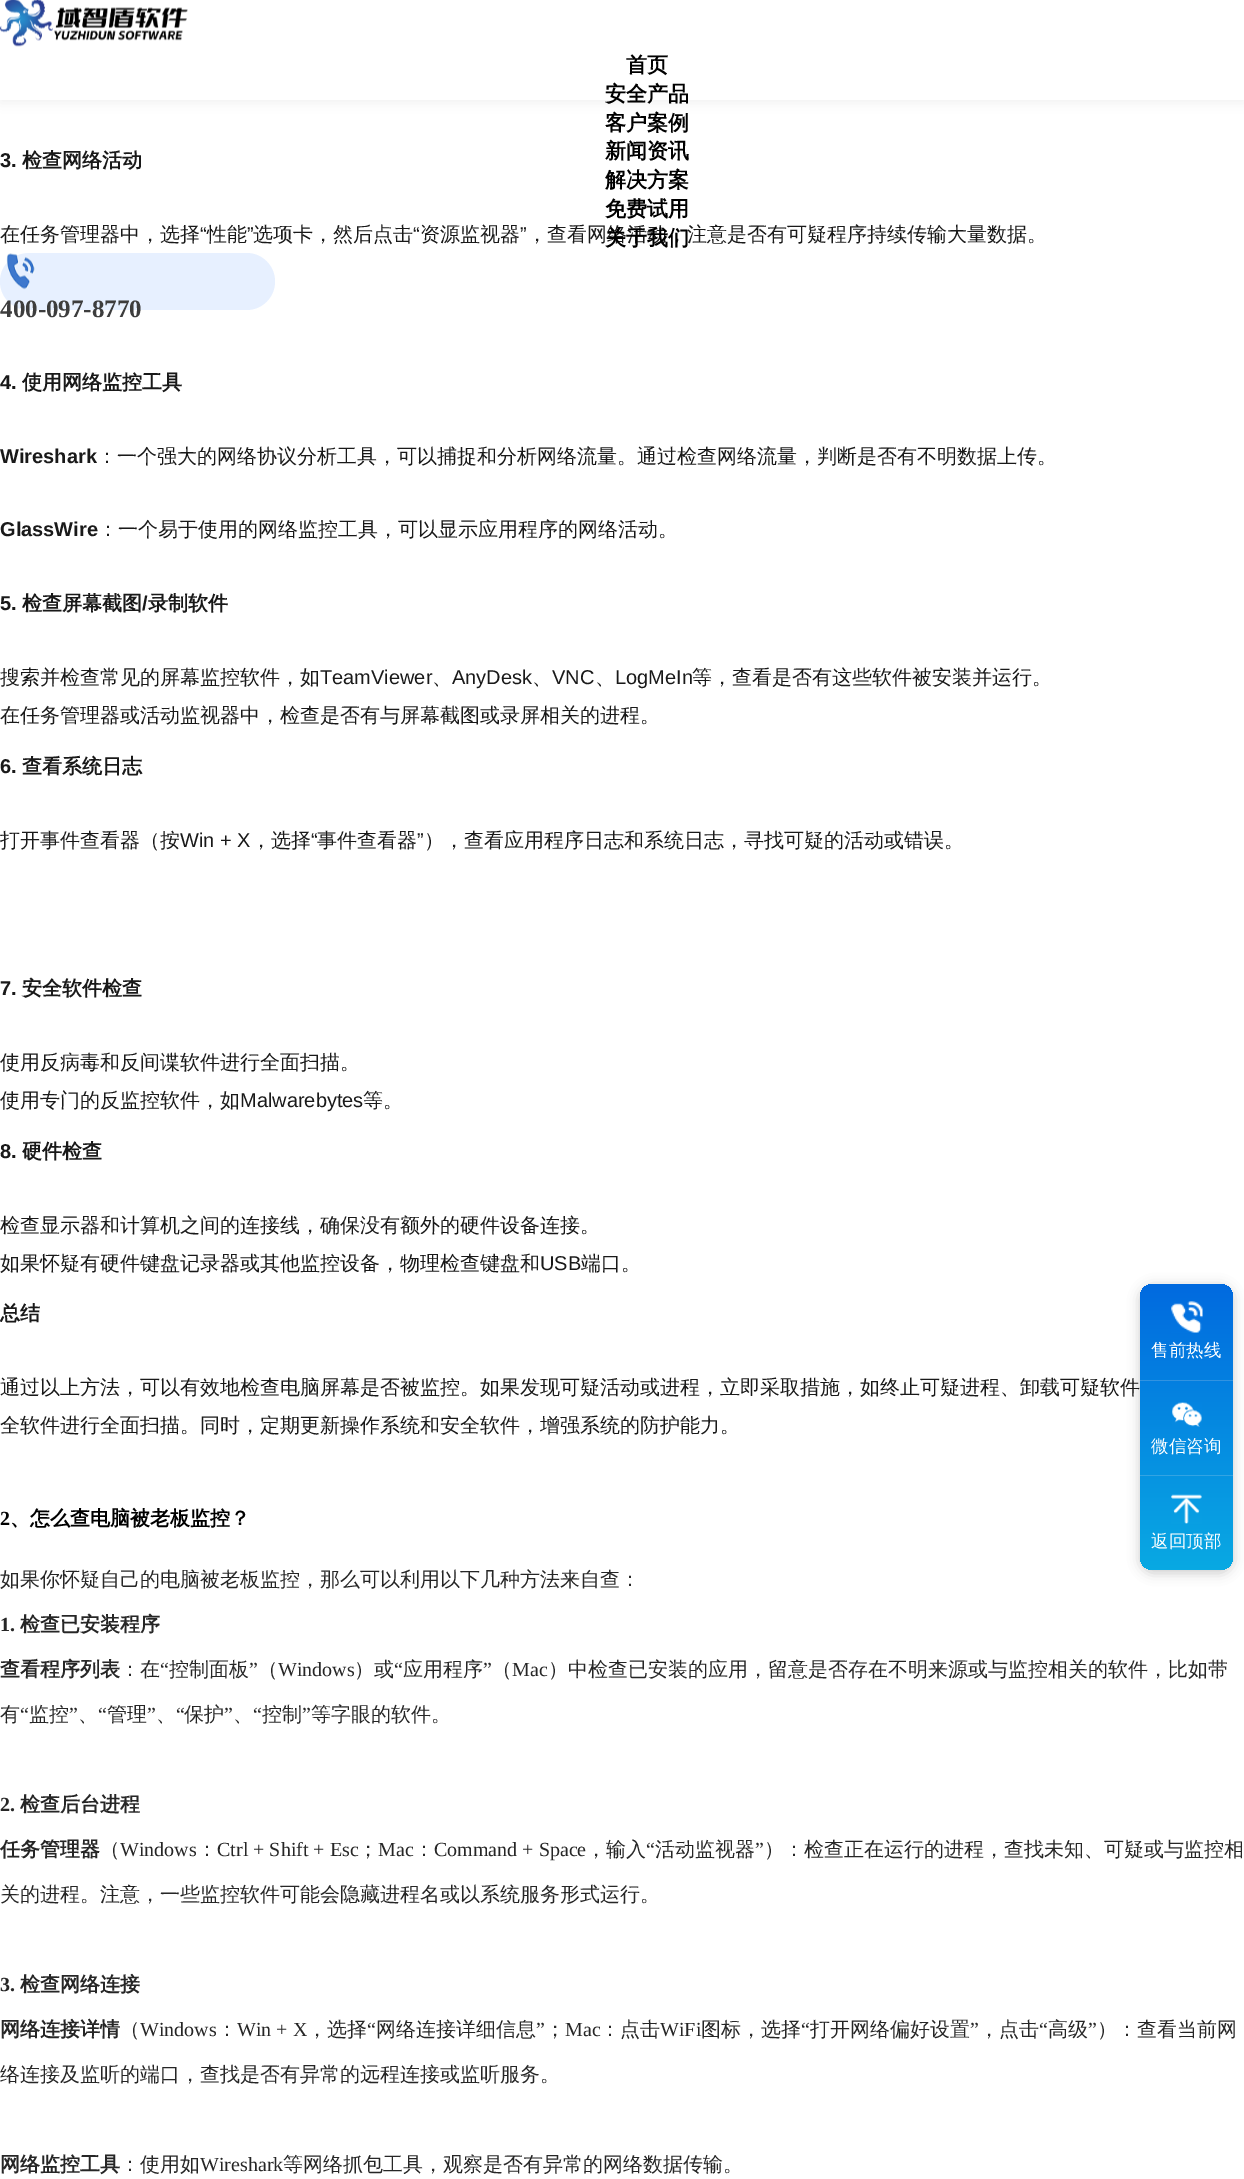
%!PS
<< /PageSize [1244 2179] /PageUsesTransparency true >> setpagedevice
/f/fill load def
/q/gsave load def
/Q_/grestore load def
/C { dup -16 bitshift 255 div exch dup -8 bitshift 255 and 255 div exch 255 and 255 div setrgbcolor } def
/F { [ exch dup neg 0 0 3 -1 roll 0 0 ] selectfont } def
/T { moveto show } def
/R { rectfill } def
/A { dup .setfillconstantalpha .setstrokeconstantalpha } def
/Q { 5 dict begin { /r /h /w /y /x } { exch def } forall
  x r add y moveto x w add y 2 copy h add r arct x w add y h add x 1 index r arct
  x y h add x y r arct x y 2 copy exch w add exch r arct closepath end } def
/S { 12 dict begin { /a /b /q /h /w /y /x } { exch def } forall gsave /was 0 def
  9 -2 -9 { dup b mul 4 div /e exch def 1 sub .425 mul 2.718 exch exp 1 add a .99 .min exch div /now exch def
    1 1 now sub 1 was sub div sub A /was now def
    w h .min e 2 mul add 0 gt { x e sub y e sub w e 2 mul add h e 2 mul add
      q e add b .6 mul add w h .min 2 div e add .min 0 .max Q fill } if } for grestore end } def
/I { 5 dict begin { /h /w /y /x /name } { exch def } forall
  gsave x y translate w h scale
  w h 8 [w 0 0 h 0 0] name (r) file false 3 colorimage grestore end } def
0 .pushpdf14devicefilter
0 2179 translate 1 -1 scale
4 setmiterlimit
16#FFFFFF C
0 0 1244 2179 R
16#000000 C
0 3 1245 100 0 6 .05 S
16#FFFFFF C
0 0 1244 100 R
(1.rgb) 0 0 188 47 I
/WenQuanYiZenHei-Bold 21 F
16#000000 C
(首页) 626 72 T
(安全产品) 605 101 T
(客户案例) 605 130 T
(新闻资讯) 605 158 T
(解决方案) 605 187 T
(免费试用) 605 216 T
/WenQuanYiZenHei-Medium 20 F
16#191919 C
(，查看网络活动，注意是否有可疑程序持续传输大量数据。) 527 241 T
/WenQuanYiZenHei-Bold 21 F
16#000000 C
(关于我们) 605 245 T
16#E7F0FF C
0 253 275 57 28.5 Q f
(2.rgb) 6 253 29 37 I
/LiberationSerif-Bold 25 F
16#3D3D3D C
(400-097-8770) 0 317 T
/LiberationSans-Bold 20 F
16#191919 C
(3.) 0 167 T
/WenQuanYiZenHei-Bold 20 F
(检查网络活动) 22 167 T
/WenQuanYiZenHei-Medium 20 F
(在任务管理器中，选择) 0 241 T
/LiberationSans-Regular 20 F
(“) 200 241 T
/WenQuanYiZenHei-Medium 20 F
(性能) 207 241 T
/LiberationSans-Regular 20 F
(”) 247 241 T
/WenQuanYiZenHei-Medium 20 F
(选项卡，然后点击) 253 241 T
/LiberationSans-Regular 20 F
(“) 413 241 T
/WenQuanYiZenHei-Medium 20 F
(资源监视器) 420 241 T
/LiberationSans-Regular 20 F
(”) 520 241 T
/LiberationSans-Bold 20 F
(4.) 0 389 T
/WenQuanYiZenHei-Bold 20 F
(使用网络监控工具) 22 389 T
/LiberationSans-Bold 20 F
(Wireshark) 0 463 T
/WenQuanYiZenHei-Medium 20 F
(：一个强大的网络协议分析工具，可以捕捉和分析网络流量。通过检查网络流量，判断是否有不明数据上传。) 97 463 T
/LiberationSans-Bold 20 F
(GlassWire) 0 536 T
/WenQuanYiZenHei-Medium 20 F
(：一个易于使用的网络监控工具，可以显示应用程序的网络活动。) 98 536 T
/LiberationSans-Bold 20 F
(5.) 0 610 T
/WenQuanYiZenHei-Bold 20 F
(检查屏幕截图) 22 610 T
/LiberationSans-Bold 20 F
(/) 142 610 T
/WenQuanYiZenHei-Bold 20 F
(录制软件) 148 610 T
/WenQuanYiZenHei-Medium 20 F
(搜索并检查常见的屏幕监控软件，如) 0 684 T
/LiberationSans-Regular 20 F
(TeamViewer) 320 684 T
/WenQuanYiZenHei-Medium 20 F
(、) 432 684 T
/LiberationSans-Regular 20 F
(AnyDesk) 452 684 T
/WenQuanYiZenHei-Medium 20 F
(、) 532 684 T
/LiberationSans-Regular 20 F
(VNC) 552 684 T
/WenQuanYiZenHei-Medium 20 F
(、) 595 684 T
/LiberationSans-Regular 20 F
(LogMeIn) 615 684 T
/WenQuanYiZenHei-Medium 20 F
(等，查看是否有这些软件被安装并运行。) 692 684 T
(在任务管理器或活动监视器中，检查是否有与屏幕截图或录屏相关的进程。) 0 722 T
/LiberationSans-Bold 20 F
(6.) 0 773 T
/WenQuanYiZenHei-Bold 20 F
(查看系统日志) 22 773 T
/WenQuanYiZenHei-Medium 20 F
(打开事件查看器（按) 0 847 T
/LiberationSans-Regular 20 F
(Win + X) 180 847 T
/WenQuanYiZenHei-Medium 20 F
(，选择) 251 847 T
/LiberationSans-Regular 20 F
(“) 311 847 T
/WenQuanYiZenHei-Medium 20 F
(事件查看器) 317 847 T
/LiberationSans-Regular 20 F
(”) 417 847 T
/WenQuanYiZenHei-Medium 20 F
(），查看应用程序日志和系统日志，寻找可疑的活动或错误。) 424 847 T
/LiberationSans-Bold 20 F
(7.) 0 995 T
/WenQuanYiZenHei-Bold 20 F
(安全软件检查) 22 995 T
/WenQuanYiZenHei-Medium 20 F
(使用反病毒和反间谍软件进行全面扫描。) 0 1069 T
(使用专门的反监控软件，如) 0 1107 T
/LiberationSans-Regular 20 F
(Malwarebytes) 240 1107 T
/WenQuanYiZenHei-Medium 20 F
(等。) 363 1107 T
/LiberationSans-Bold 20 F
(8.) 0 1158 T
/WenQuanYiZenHei-Bold 20 F
(硬件检查) 22 1158 T
/WenQuanYiZenHei-Medium 20 F
(检查显示器和计算机之间的连接线，确保没有额外的硬件设备连接。) 0 1232 T
(如果怀疑有硬件键盘记录器或其他监控设备，物理检查键盘和) 0 1270 T
/LiberationSans-Regular 20 F
(USB) 540 1270 T
/WenQuanYiZenHei-Medium 20 F
(端口。) 581 1270 T
/WenQuanYiZenHei-Bold 20 F
(总结) 0 1320 T
/WenQuanYiZenHei-Medium 20 F
(通过以上方法，可以有效地检查电脑屏幕是否被监控。如果发现可疑活动或进程，立即采取措施，如终止可疑进程、卸载可疑软件) 0 1394 T
(全软件进行全面扫描。同时，定期更新操作系统和安全软件，增强系统的防护能力。) 0 1432 T
/LiberationSerif-Bold 20 F
16#000000 C
(2) 0 1525 T
/WenQuanYiZenHei-Bold 20 F
(、怎么查电脑被老板监控？) 10 1525 T
/WenQuanYiZenHei-Medium 20 F
16#262626 C
(如果你怀疑自己的电脑被老板监控，那么可以利用以下几种方法来自查：) 0 1586 T
/LiberationSerif-Bold 20 F
(1.) 0 1631 T
/WenQuanYiZenHei-Bold 20 F
(检查已安装程序) 20 1631 T
(查看程序列表) 0 1676 T
/WenQuanYiZenHei-Medium 20 F
(：在) 120 1676 T
/LiberationSerif-Regular 20 F
(“) 160 1676 T
/WenQuanYiZenHei-Medium 20 F
(控制面板) 169 1676 T
/LiberationSerif-Regular 20 F
(”) 249 1676 T
/WenQuanYiZenHei-Medium 20 F
(（) 258 1676 T
/LiberationSerif-Regular 20 F
(Windows) 278 1676 T
/WenQuanYiZenHei-Medium 20 F
(）或) 354 1676 T
/LiberationSerif-Regular 20 F
(“) 394 1676 T
/WenQuanYiZenHei-Medium 20 F
(应用程序) 403 1676 T
/LiberationSerif-Regular 20 F
(”) 483 1676 T
/WenQuanYiZenHei-Medium 20 F
(（) 492 1676 T
/LiberationSerif-Regular 20 F
(Mac) 512 1676 T
/WenQuanYiZenHei-Medium 20 F
(）中检查已安装的应用，留意是否存在不明来源或与监控相关的软件，比如带) 548 1676 T
(有) 0 1721 T
/LiberationSerif-Regular 20 F
(“) 20 1721 T
/WenQuanYiZenHei-Medium 20 F
(监控) 29 1721 T
/LiberationSerif-Regular 20 F
(”) 69 1721 T
(“) 98 1721 T
/WenQuanYiZenHei-Medium 20 F
(管理) 107 1721 T
/LiberationSerif-Regular 20 F
(”) 147 1721 T
(“) 176 1721 T
/WenQuanYiZenHei-Medium 20 F
(保护) 184 1721 T
/LiberationSerif-Regular 20 F
(”) 224 1721 T
(“) 253 1721 T
/WenQuanYiZenHei-Medium 20 F
(控制) 262 1721 T
/LiberationSerif-Regular 20 F
(”) 302 1721 T
/WenQuanYiZenHei-Medium 20 F
(等字眼的软件。) 311 1721 T
(、) 78 1721 T
(、) 156 1721 T
(、) 233 1721 T
/LiberationSerif-Bold 20 F
(2.) 0 1811 T
/WenQuanYiZenHei-Bold 20 F
(检查后台进程) 20 1811 T
(任务管理器) 0 1856 T
/WenQuanYiZenHei-Medium 20 F
(（) 100 1856 T
/LiberationSerif-Regular 20 F
(Windows) 120 1856 T
/WenQuanYiZenHei-Medium 20 F
(：) 197 1856 T
/LiberationSerif-Regular 20 F
(Ctrl + Shift + Esc) 217 1856 T
/WenQuanYiZenHei-Medium 20 F
(；) 358 1856 T
/LiberationSerif-Regular 20 F
(Mac) 378 1856 T
/WenQuanYiZenHei-Medium 20 F
(：) 414 1856 T
/LiberationSerif-Regular 20 F
(Command + Space) 434 1856 T
/WenQuanYiZenHei-Medium 20 F
(，输入) 586 1856 T
/LiberationSerif-Regular 20 F
(“) 646 1856 T
/WenQuanYiZenHei-Medium 20 F
(活动监视器) 655 1856 T
/LiberationSerif-Regular 20 F
(”) 755 1856 T
/WenQuanYiZenHei-Medium 20 F
(）：检查正在运行的进程，查找未知、可疑或与监控相) 764 1856 T
(关的进程。注意，一些监控软件可能会隐藏进程名或以系统服务形式运行。) 0 1901 T
/LiberationSerif-Bold 20 F
(3.) 0 1991 T
/WenQuanYiZenHei-Bold 20 F
(检查网络连接) 20 1991 T
(网络连接详情) 0 2036 T
/WenQuanYiZenHei-Medium 20 F
(（) 120 2036 T
/LiberationSerif-Regular 20 F
(Windows) 140 2036 T
/WenQuanYiZenHei-Medium 20 F
(：) 217 2036 T
/LiberationSerif-Regular 20 F
(Win + X) 237 2036 T
/WenQuanYiZenHei-Medium 20 F
(，选择) 307 2036 T
/LiberationSerif-Regular 20 F
(“) 367 2036 T
/WenQuanYiZenHei-Medium 20 F
(网络连接详细信息) 376 2036 T
/LiberationSerif-Regular 20 F
(”) 536 2036 T
/WenQuanYiZenHei-Medium 20 F
(；) 545 2036 T
/LiberationSerif-Regular 20 F
(Mac) 565 2036 T
/WenQuanYiZenHei-Medium 20 F
(：点击) 600 2036 T
/LiberationSerif-Regular 20 F
(WiFi) 660 2036 T
/WenQuanYiZenHei-Medium 20 F
(图标，选择) 701 2036 T
/LiberationSerif-Regular 20 F
(“) 801 2036 T
/WenQuanYiZenHei-Medium 20 F
(打开网络偏好设置) 810 2036 T
/LiberationSerif-Regular 20 F
(”) 970 2036 T
/WenQuanYiZenHei-Medium 20 F
(，点击) 979 2036 T
/LiberationSerif-Regular 20 F
(“) 1039 2036 T
/WenQuanYiZenHei-Medium 20 F
(高级) 1048 2036 T
/LiberationSerif-Regular 20 F
(”) 1088 2036 T
/WenQuanYiZenHei-Medium 20 F
(）：查看当前网) 1097 2036 T
(络连接及监听的端口，查找是否有异常的远程连接或监听服务。) 0 2081 T
/WenQuanYiZenHei-Bold 20 F
(网络监控工具) 0 2171 T
/WenQuanYiZenHei-Medium 20 F
(：使用如) 120 2171 T
/LiberationSerif-Regular 20 F
(Wireshark) 200 2171 T
/WenQuanYiZenHei-Medium 20 F
(等网络抓包工具，观察是否有异常的网络数据传输。) 283 2171 T
16#000000 C
1140 1286 93 287 13 6 .2 S
q 1140 1284 93 286 13 Q clip newpath
<< /ShadingType 2 /ColorSpace /DeviceRGB /Coords [1186 1284 1186 1570] /Extend [true true] /Function << /FunctionType 2 /Domain [0 1] /C0 [.004 .416 .875] /C1 [.035 .663 .89] /N 1 >> >> shfill Q_
16#3193E1 C
1140 1380 93 1 R
(3.rgb) 1171 1301 32 32 I
/WenQuanYiZenHei-Medium 17.5 F
16#FFFFFF C
(售前热线) 1151 1356 T
16#33A4E3 C
1140 1475 93 1 R
(4.rgb) 1172 1402 30 25 I
16#FFFFFF C
(微信咨询) 1151 1452 T
(5.rgb) 1171 1494 31 30 I
(返回顶部) 1151 1547 T
.poppdf14devicefilter showpage
